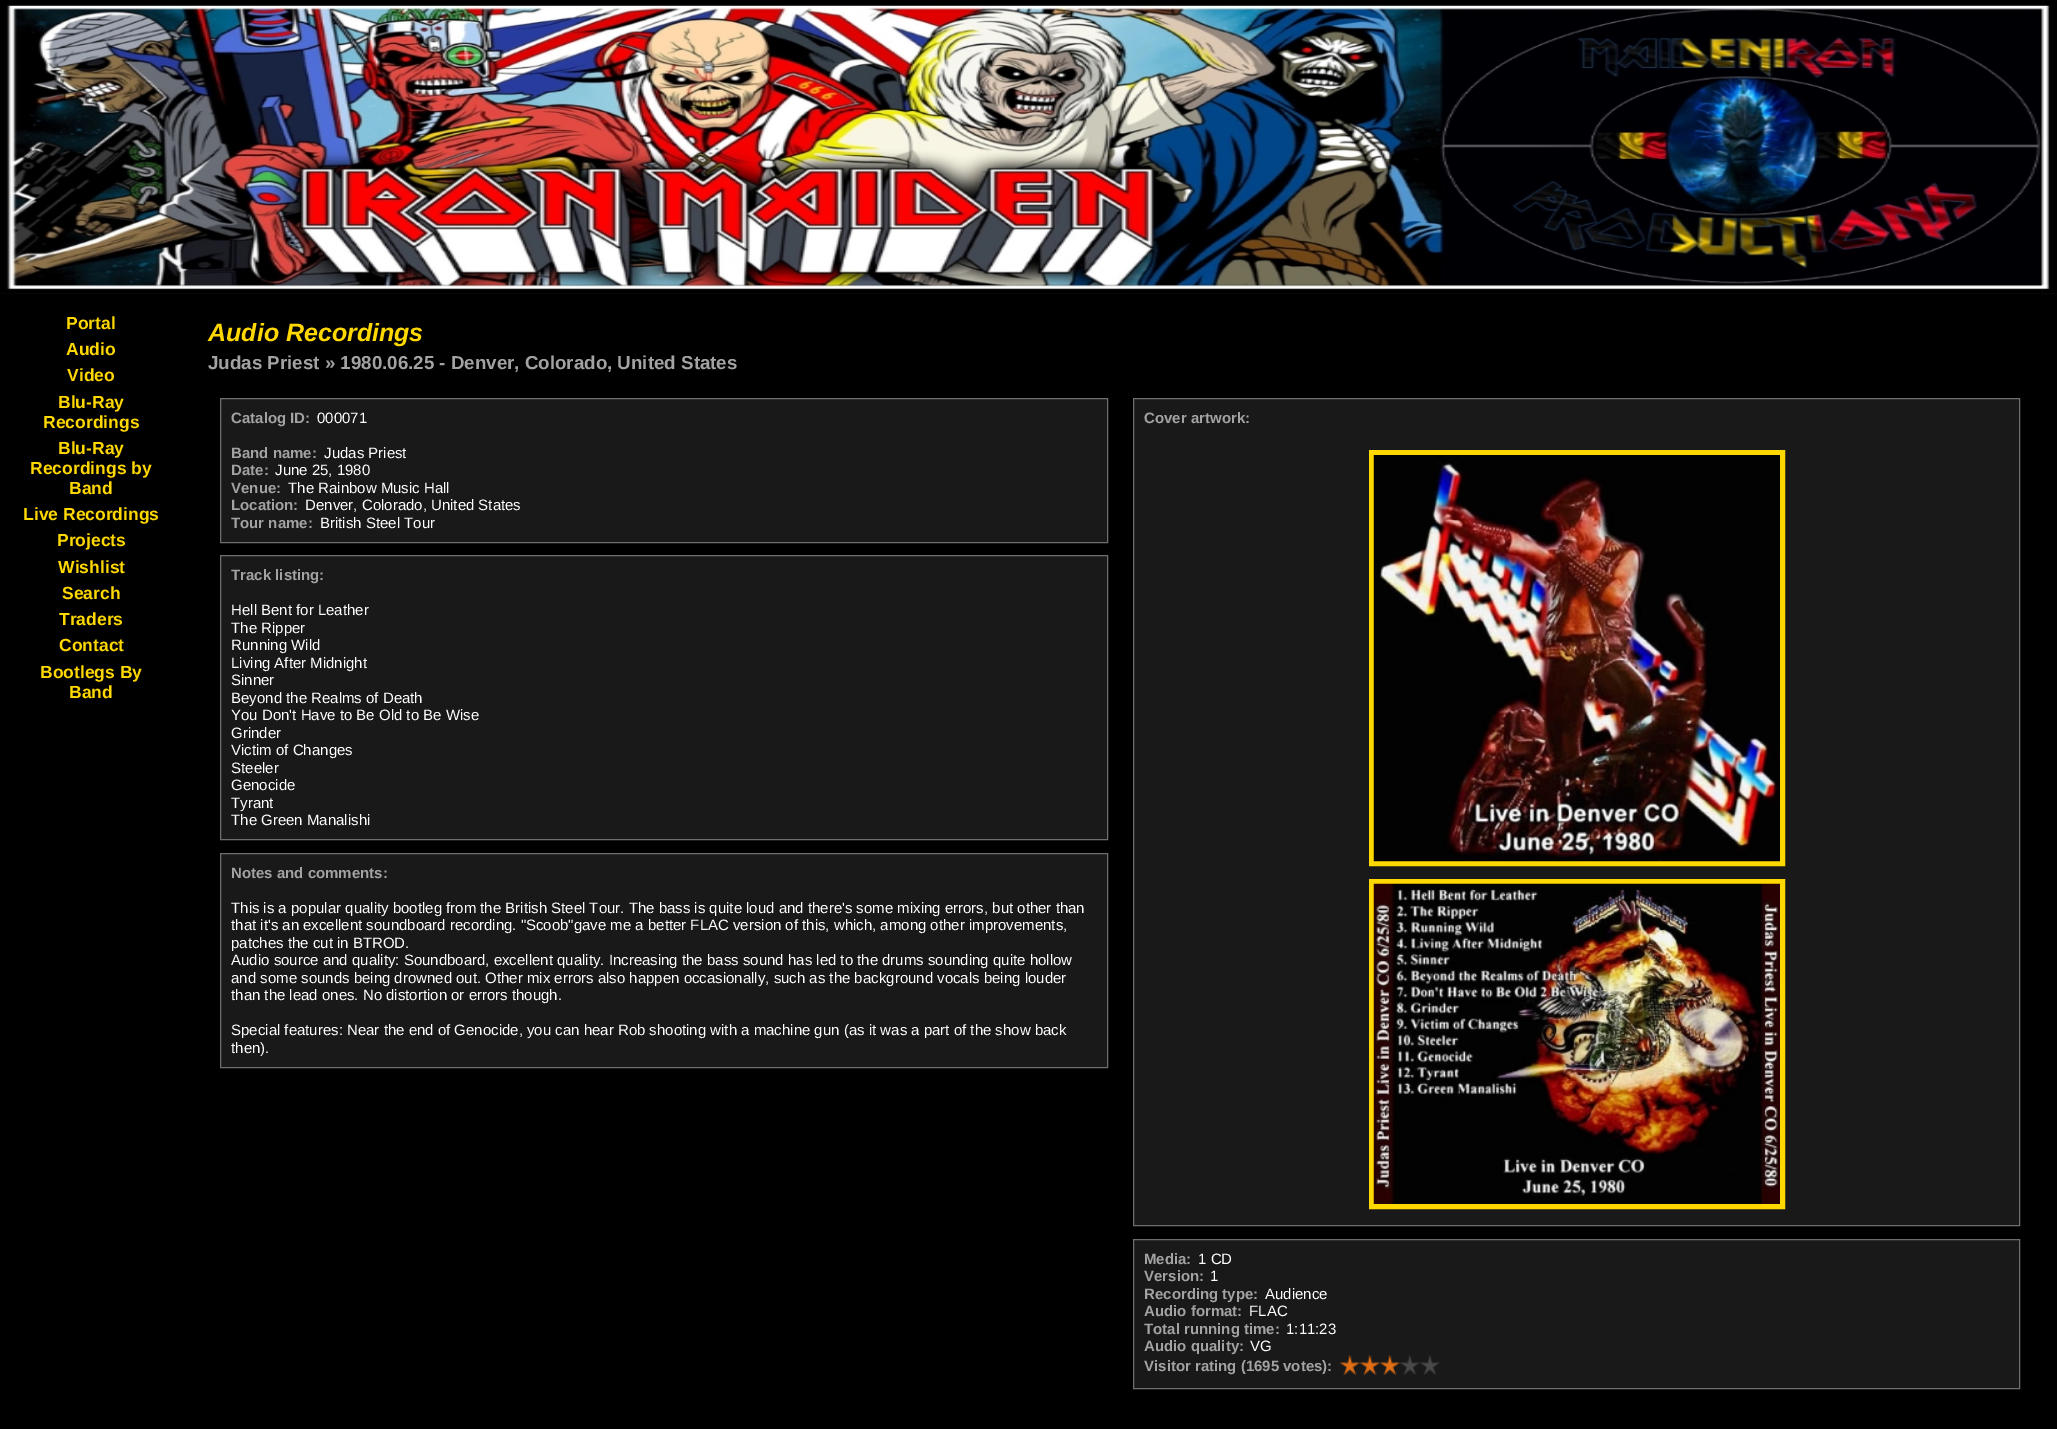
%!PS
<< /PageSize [2057 1429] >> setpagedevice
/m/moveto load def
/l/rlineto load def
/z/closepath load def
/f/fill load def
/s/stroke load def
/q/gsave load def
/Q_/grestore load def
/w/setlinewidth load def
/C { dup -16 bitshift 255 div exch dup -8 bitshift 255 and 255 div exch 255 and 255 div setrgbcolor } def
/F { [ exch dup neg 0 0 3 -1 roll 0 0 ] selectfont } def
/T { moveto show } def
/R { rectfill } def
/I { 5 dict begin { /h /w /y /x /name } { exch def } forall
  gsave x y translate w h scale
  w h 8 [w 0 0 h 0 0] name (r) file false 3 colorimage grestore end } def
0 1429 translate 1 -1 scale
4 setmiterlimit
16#000000 C
0 0 2057 1429 R
(1.rgb) 0 0 2057 294 I
/LiberationSans-Bold 17.5 F
16#FFD800 C
(Portal) 66 329 T
(Audio) 66 355 T
(Video) 67 381 T
(Blu-Ray) 58 408 T
(Recordings) 43 428 T
(Blu-Ray) 58 454 T
(Recordings by) 30 474 T
(Band) 69 494 T
(Live Recordings) 23 520 T
(Projects) 57 546 T
(Wishlist) 58 573 T
(Search) 62 599 T
(Traders) 59 625 T
(Contact) 59 651 T
(Bootlegs By) 40 678 T
(Band) 69 698 T
/LiberationSans-BoldItalic 25 F
(Audio Recordings) 208 341 T
/LiberationSans-Bold 18.75 F
16#A3A3A3 C
(Judas Priest » 1980.06.25 - Denver, Colorado, United States) 208 369 T
16#191919 C
220.5 398.5 m 887 0 l 0 144 l -887 0 l z q f Q_
16#6E6E6E C
s
/LiberationSans-Bold 15 F
16#A3A3A3 C
(Catalog ID:) 231 423 T
/LiberationSans-Regular 15 F
16#FFFFFF C
(000071) 317 423 T
/LiberationSans-Bold 15 F
16#A3A3A3 C
(Band name:) 231 458 T
/LiberationSans-Regular 15 F
16#FFFFFF C
(Judas Priest) 324 458 T
/LiberationSans-Bold 15 F
16#A3A3A3 C
(Date:) 231 475 T
/LiberationSans-Regular 15 F
16#FFFFFF C
(June 25, 1980) 275 475 T
/LiberationSans-Bold 15 F
16#A3A3A3 C
(Venue:) 231 493 T
/LiberationSans-Regular 15 F
16#FFFFFF C
(The Rainbow Music Hall) 288 493 T
/LiberationSans-Bold 15 F
16#A3A3A3 C
(Location:) 231 510 T
/LiberationSans-Regular 15 F
16#FFFFFF C
(Denver, Colorado, United States) 305 510 T
/LiberationSans-Bold 15 F
16#A3A3A3 C
(Tour name:) 231 528 T
/LiberationSans-Regular 15 F
16#FFFFFF C
(British Steel Tour) 320 528 T
16#191919 C
220.5 555.5 m 887 0 l 0 284 l -887 0 l z q f Q_
16#6E6E6E C
s
/LiberationSans-Bold 15 F
16#A3A3A3 C
(Track listing:) 231 580 T
/LiberationSans-Regular 15 F
16#FFFFFF C
(Hell Bent for Leather) 231 615 T
(The Ripper) 231 633 T
(Running Wild) 231 650 T
(Living After Midnight) 231 668 T
(Sinner) 231 685 T
(Beyond the Realms of Death) 231 703 T
(You Don't Have to Be Old to Be Wise) 231 720 T
(Grinder) 231 738 T
(Victim of Changes) 231 755 T
(Steeler) 231 773 T
(Genocide) 231 790 T
(Tyrant) 231 808 T
(The Green Manalishi) 231 825 T
16#191919 C
220.5 853.5 m 887 0 l 0 214 l -887 0 l z q f Q_
16#6E6E6E C
s
/LiberationSans-Bold 15 F
16#A3A3A3 C
(Notes and comments:) 231 878 T
/LiberationSans-Regular 15 F
16#FFFFFF C
(This is a popular quality bootleg from the British Steel Tour. The bass is quite loud and there's some mixing errors, but other than) 231 913 T
(that it's an excellent soundboard recording. "Scoob"gave me a better FLAC version of this, which, among other improvements,) 231 930 T
(patches the cut in BTROD.) 231 948 T
(Audio source and quality: Soundboard, excellent quality. Increasing the bass sound has led to the drums sounding quite hollow) 231 965 T
(and some sounds being drowned out. Other mix errors also happen occasionally, such as the background vocals being louder) 231 983 T
(than the lead ones. No distortion or errors though.) 231 1000 T
(Special features: Near the end of Genocide, you can hear Rob shooting with a machine gun \(as it was a part of the show back) 231 1035 T
(then\).) 231 1053 T
16#191919 C
1133.5 398.5 m 886 0 l 0 827 l -886 0 l z q f Q_
16#6E6E6E C
s
/LiberationSans-Bold 15 F
16#A3A3A3 C
(Cover artwork:) 1144 423 T
16#FFD800 C
5 w
1371.5 452.5 411 411 rectstroke
(2.rgb) 1373 455 407 407 I
1371.5 881.5 411 325 rectstroke
(3.rgb) 1373 883 407 321 I
16#191919 C
1133.5 1239.5 m 886 0 l 0 149 l -886 0 l z q f Q_
16#6E6E6E C
1 w
s
16#A3A3A3 C
(Media:) 1144 1264 T
/LiberationSans-Regular 15 F
16#FFFFFF C
(1 CD) 1198 1264 T
/LiberationSans-Bold 15 F
16#A3A3A3 C
(Version:) 1144 1281 T
/LiberationSans-Regular 15 F
16#FFFFFF C
(1) 1210 1281 T
/LiberationSans-Bold 15 F
16#A3A3A3 C
(Recording type:) 1144 1299 T
/LiberationSans-Regular 15 F
16#FFFFFF C
(Audience) 1265 1299 T
/LiberationSans-Bold 15 F
16#A3A3A3 C
(Audio format:) 1144 1316 T
/LiberationSans-Regular 15 F
16#FFFFFF C
(FLAC) 1249 1316 T
/LiberationSans-Bold 15 F
16#A3A3A3 C
(Total running time:) 1144 1334 T
/LiberationSans-Regular 15 F
16#FFFFFF C
(1:11:23) 1286 1334 T
/LiberationSans-Bold 15 F
16#A3A3A3 C
(Audio quality:) 1144 1351 T
/LiberationSans-Regular 15 F
16#FFFFFF C
(VG) 1250 1351 T
/LiberationSans-Bold 15 F
16#A3A3A3 C
(Visitor rating \(1695 votes\):) 1144 1371 T
(4.rgb) 1340 1355 100 20 I
showpage
